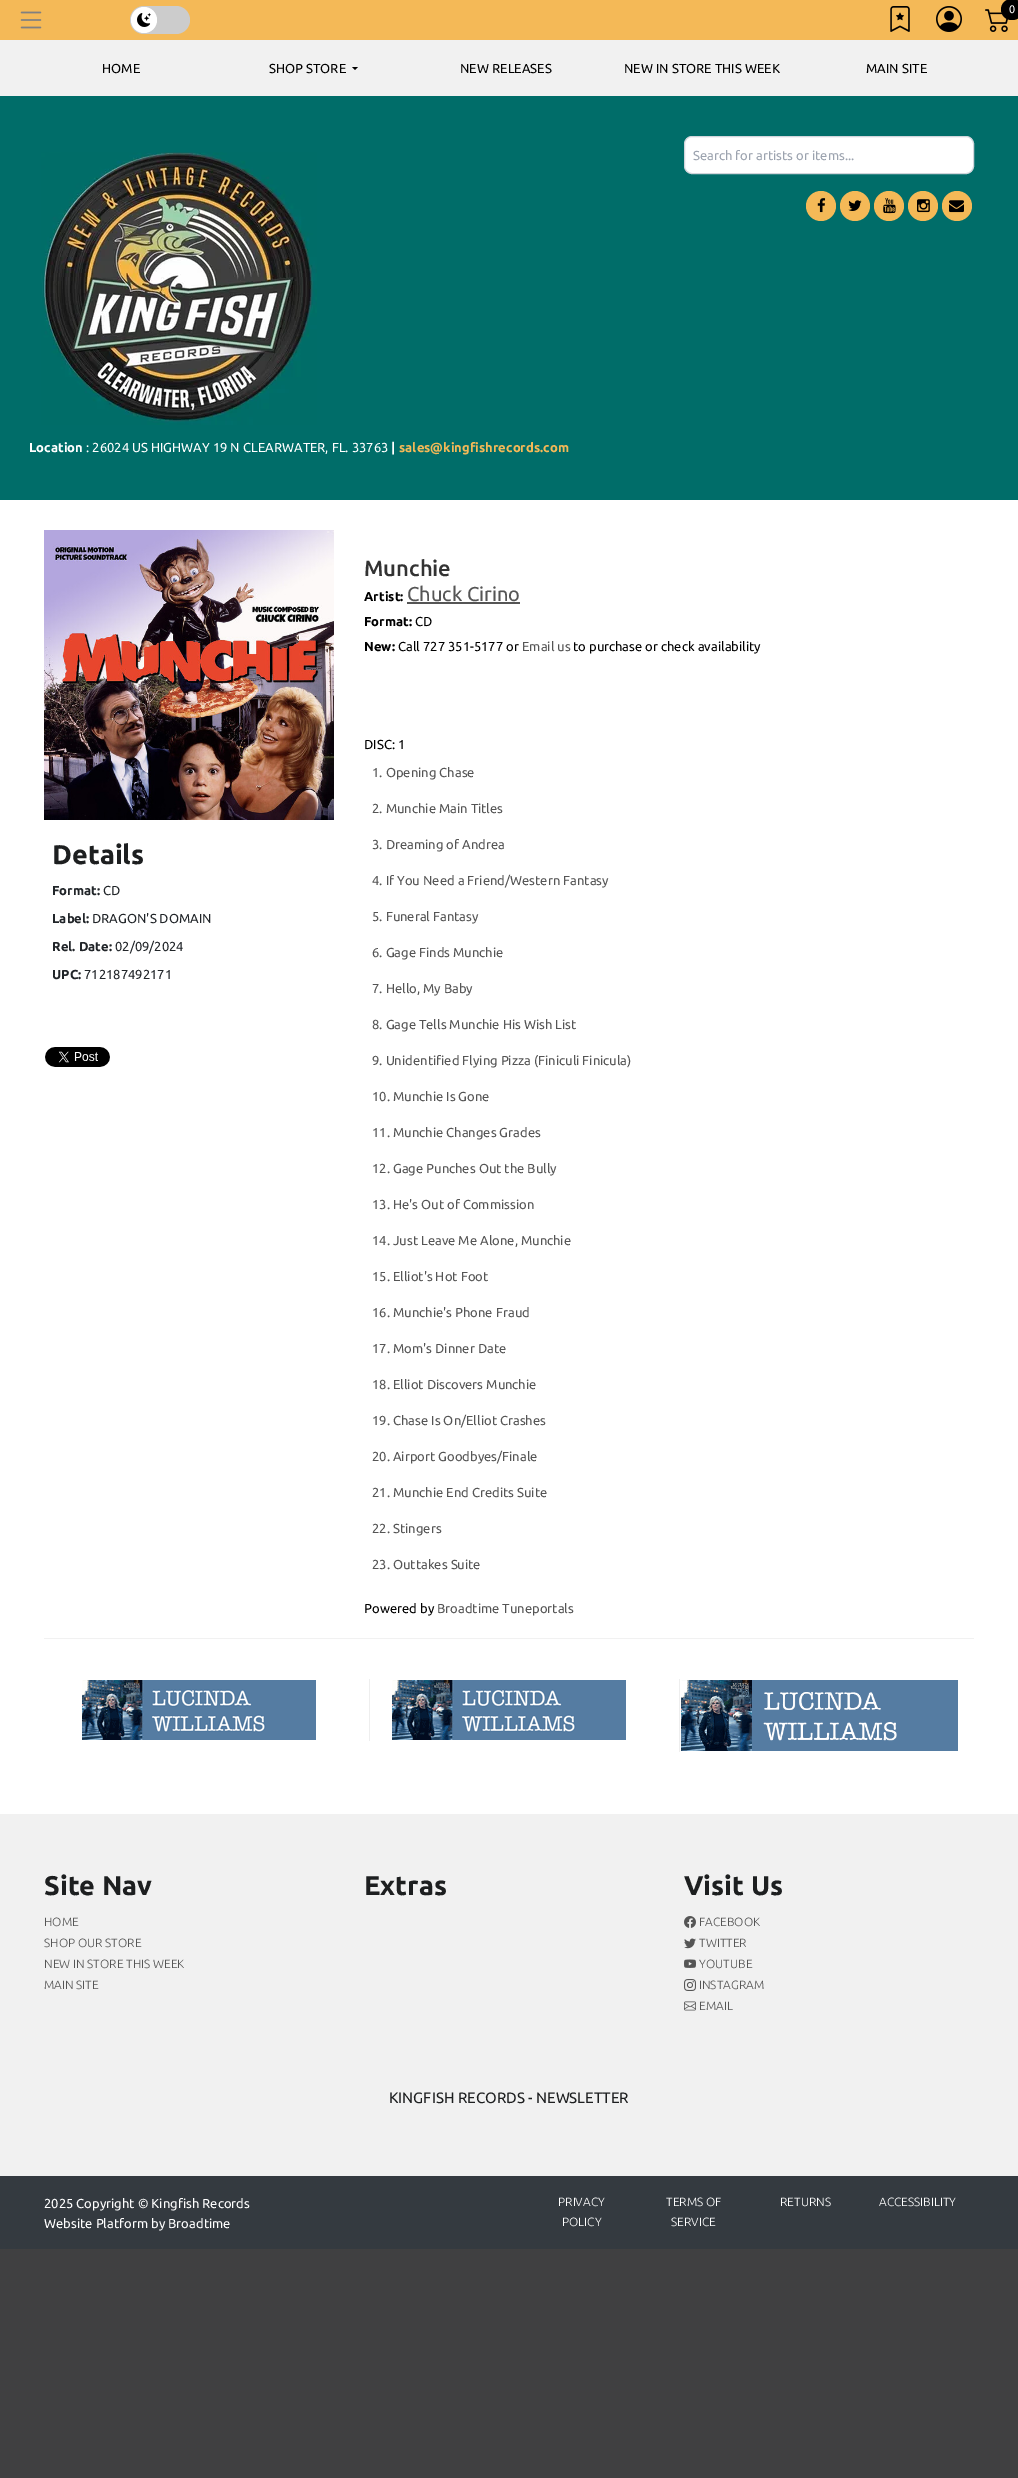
%!PS
<< /PageSize [1018 2478] >> setpagedevice
/m/moveto load def
/l/rlineto load def
/z/closepath load def
/f/fill load def
/s/stroke load def
/q/gsave load def
/Q_/grestore load def
/C { dup -16 bitshift 255 div exch dup -8 bitshift 255 and 255 div exch 255 and 255 div setrgbcolor } def
/F { [ exch dup neg 0 0 3 -1 roll 0 0 ] selectfont } def
/T { moveto show } def
/R { rectfill } def
/O { newpath 0 360 arc closepath } def
/Q { 5 dict begin { /r /h /w /y /x } { exch def } forall
  x r add y moveto x w add y 2 copy h add r arct x w add y h add x 1 index r arct
  x y h add x y r arct x y 2 copy exch w add exch r arct closepath end } def
/I { 5 dict begin { /h /w /y /x /name } { exch def } forall
  gsave x y translate w h scale
  w h 8 [w 0 0 h 0 0] name (r) file false 3 colorimage grestore end } def
0 2478 translate 1 -1 scale
4 setmiterlimit
16#404041 C
0 0 1018 2478 R
16#FFFFFF C
0 500 1018 1314 R
16#F4B957 C
0 0 1018 40 R
(1.rgb) 20 11 22 18 I
16#CCCCCC C
130 6 60 28 14 Q f
16#FFFFFF C
144 20 13 O f
(2.rgb) 137 13 14 14 I
(3.rgb) 890 6 20 26 I
(4.rgb) 936 6 26 26 I
(5.rgb) 985 9 23 23 I
16#000000 C
1001 -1 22 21 10.5 Q f
/Ubuntu-Regular 11 F
16#FFFFFF C
(0) 1009 13 T
16#006D69 C
0 96 1018 404 R
16#F1F1F1 C
0 40 1018 56 R
/Ubuntu-Regular 13 F
16#000000 C
(HOME) 102 73 T
(SHOP STORE) 269 73 T
352 67 m 6 0 l -3 3 l z f
(NEW RELEASES) 460 73 T
(NEW IN STORE THIS WEEK) 624 73 T
(MAIN SITE) 866 73 T
16#FFFFFF C
684.5 136.5 289 37 7.5 Q q f Q_
16#D1D5DB C
s
16#9CA3AF C
(Search for artists or items...) 693 160 T
16#F4B957 C
821 206 15 O f
(6.rgb) 817 198 9 15 I
855 206 15 O f
(7.rgb) 848 200 14 11 I
889 206 15 O f
(8.rgb) 883 198 13 16 I
923 206 15 O f
(9.rgb) 917 199 13 14 I
957 206 15 O f
(10.rgb) 949 200 15 13 I
(11.rgb) 41 152 276 273 I
/Ubuntu-Bold 13 F
16#FFFFFF C
(Location) 29 452 T
/Ubuntu-Regular 13 F
(: 26024 US HIGHWAY 19 N CLEARWATER, FL. 33763) 86 452 T
/Ubuntu-Bold 13 F
(|) 391 452 T
16#F4B957 C
(sales@kingfishrecords.com) 399 452 T
(12.rgb) 44 530 290 290 I
/Ubuntu-Bold 27 F
16#1D1F20 C
(Details) 52 864 T
/Ubuntu-Bold 13 F
16#212529 C
(Format:) 52 895 T
/Ubuntu-Regular 13 F
(CD) 103 895 T
/Ubuntu-Bold 13 F
(Label:) 52 923 T
/Ubuntu-Regular 13 F
(DRAGON'S DOMAIN) 92 923 T
/Ubuntu-Bold 13 F
(Rel. Date:) 52 951 T
/Ubuntu-Regular 13 F
(02/09/2024) 115 951 T
/Ubuntu-Bold 13 F
(UPC:) 52 979 T
/Ubuntu-Regular 13 F
(712187492171) 84 979 T
(13.rgb) 45 1047 65 20 I
/Ubuntu-Medium 22 F
16#333333 C
(Munchie) 364 576 T
/Ubuntu-Bold 13 F
16#000000 C
(Artist:) 364 601 T
16#555555 C
407 602 113 2 R
/Ubuntu-Regular 20 F
(Chuck Cirino) 407 601 T
/Ubuntu-Bold 13 F
16#000000 C
(Format:) 364 626 T
/Ubuntu-Regular 13 F
(CD) 415 626 T
/Ubuntu-Bold 13 F
(New:) 364 651 T
/Ubuntu-Regular 13 F
(Call 727 351-5177 or) 398 651 T
16#555555 C
(Email us) 522 651 T
16#000000 C
(to purchase or check availability) 573 651 T
(DISC: 1) 364 749 T
16#555555 C
(1. Opening Chase) 372 777 T
(2. Munchie Main Titles) 372 813 T
(3. Dreaming of Andrea) 372 849 T
(4. If You Need a Friend/Western Fantasy) 372 885 T
(5. Funeral Fantasy) 372 921 T
(6. Gage Finds Munchie) 372 957 T
(7. Hello, My Baby) 372 993 T
(8. Gage Tells Munchie His Wish List) 372 1029 T
(9. Unidentified Flying Pizza \(Finiculi Finicula\)) 372 1065 T
(10. Munchie Is Gone) 372 1101 T
(11. Munchie Changes Grades) 372 1137 T
(12. Gage Punches Out the Bully) 372 1173 T
(13. He's Out of Commission) 372 1209 T
(14. Just Leave Me Alone, Munchie) 372 1245 T
(15. Elliot's Hot Foot) 372 1281 T
(16. Munchie's Phone Fraud) 372 1317 T
(17. Mom's Dinner Date) 372 1353 T
(18. Elliot Discovers Munchie) 372 1389 T
(19. Chase Is On/Elliot Crashes) 372 1425 T
(20. Airport Goodbyes/Finale) 372 1461 T
(21. Munchie End Credits Suite) 372 1497 T
(22. Stingers) 372 1533 T
(23. Outtakes Suite) 372 1569 T
16#000000 C
(Powered by) 364 1613 T
16#555555 C
(Broadtime Tuneportals) 437 1613 T
16#F1F1F1 C
44 1638 930 1 R
(14.rgb) 82 1680 234 60 I
16#EEEEEE C
369 1679 1 62 R
(14.rgb) 392 1680 234 60 I
679 1679 1 73 R
(15.rgb) 681 1680 277 71 I
16#F1F1F1 C
0 1814 1018 362 R
/Ubuntu-Bold 27 F
16#1D1F20 C
(Site Nav) 44 1895 T
/Ubuntu-Light 12 F
16#555555 C
(HOME) 44 1926 T
(SHOP OUR STORE) 44 1947 T
(NEW IN STORE THIS WEEK) 44 1968 T
(MAIN SITE) 44 1989 T
/Ubuntu-Bold 27 F
16#1D1F20 C
(Extras) 364 1895 T
(Visit Us) 684 1895 T
(16.rgb) 684 1916 12 12 I
/Ubuntu-Light 12 F
16#555555 C
(FACEBOOK) 699 1926 T
(17.rgb) 684 1938 12 11 I
(TWITTER) 699 1947 T
(18.rgb) 684 1959 12 9 I
(YOUTUBE) 699 1968 T
(19.rgb) 684 1979 12 12 I
(INSTAGRAM) 699 1989 T
(20.rgb) 684 2001 12 10 I
(EMAIL) 699 2010 T
/Ubuntu-Regular 15 F
16#1D1F20 C
(KINGFISH RECORDS - NEWSLETTER) 389 2103 T
16#343A40 C
0 2176 1018 73 R
/Ubuntu-Regular 13 F
16#FFFFFF C
(2025 Copyright © Kingfish Records) 44 2208 T
(Website Platform by Broadtime) 44 2228 T
/Ubuntu-Light 12 F
(PRIVACY) 558 2206 T
(POLICY) 562 2226 T
(TERMS OF) 666 2206 T
(SERVICE) 671 2226 T
(RETURNS) 780 2206 T
(ACCESSIBILITY) 879 2206 T
showpage
